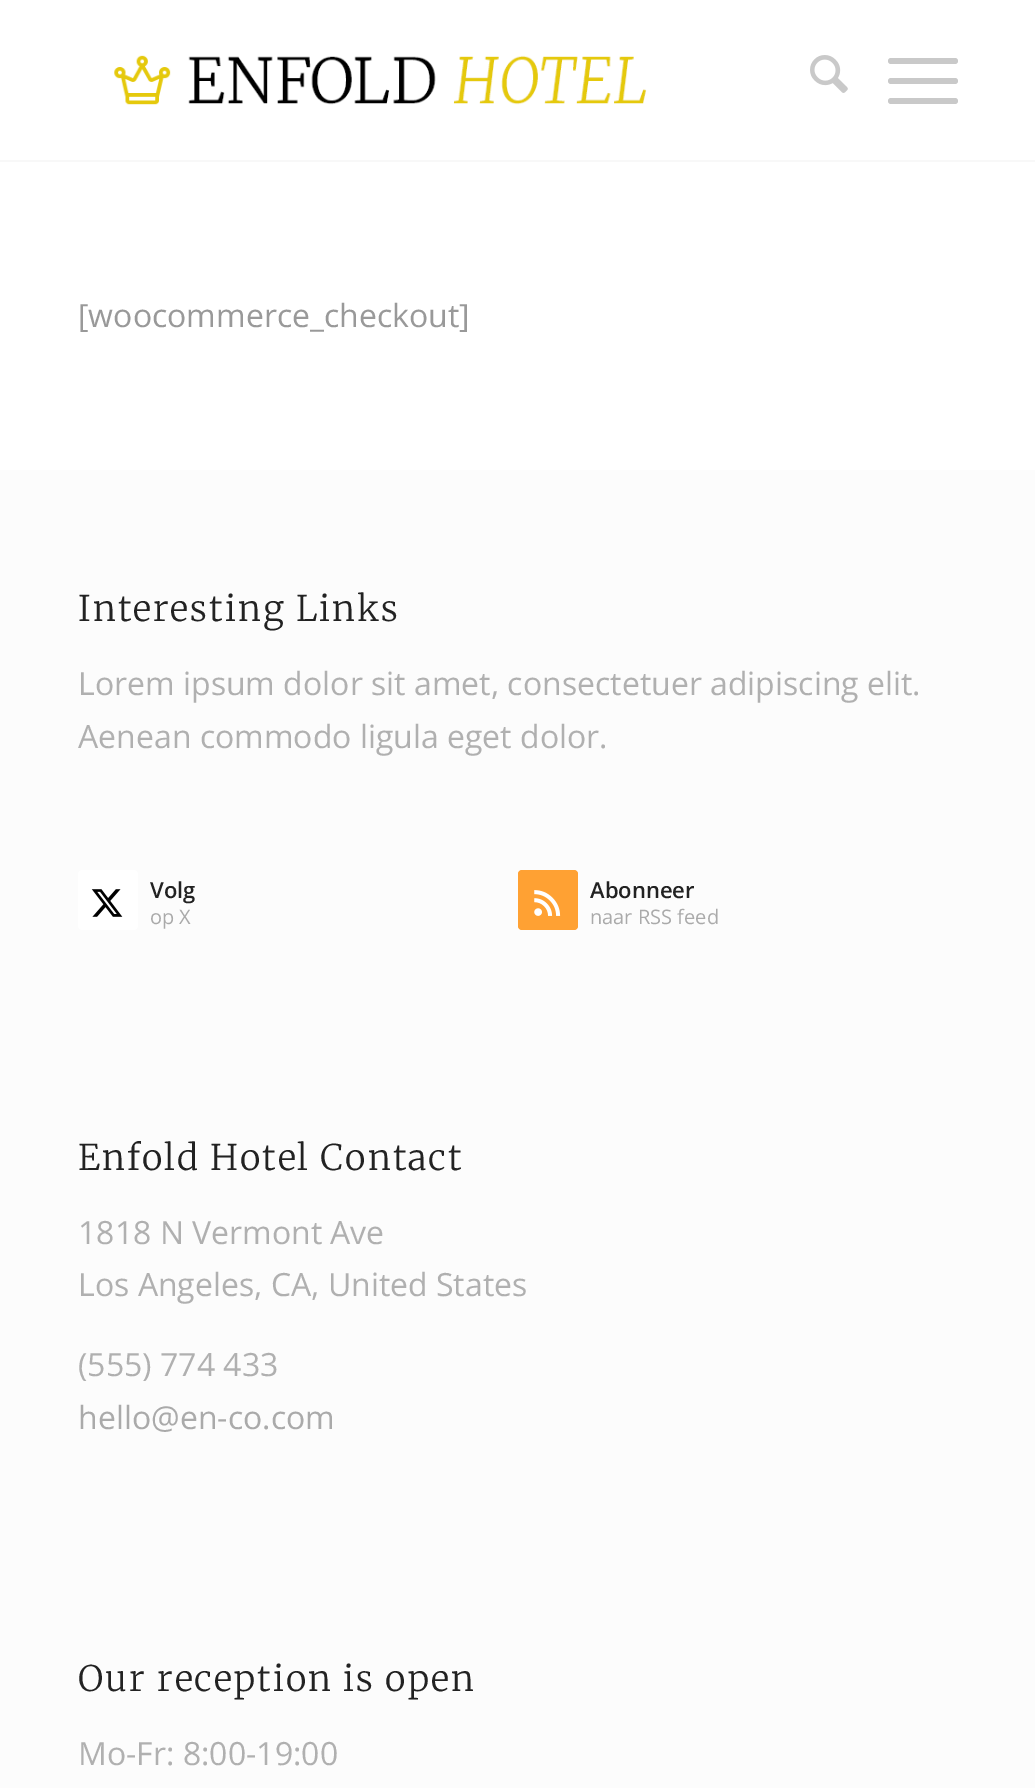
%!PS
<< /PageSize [1035 1788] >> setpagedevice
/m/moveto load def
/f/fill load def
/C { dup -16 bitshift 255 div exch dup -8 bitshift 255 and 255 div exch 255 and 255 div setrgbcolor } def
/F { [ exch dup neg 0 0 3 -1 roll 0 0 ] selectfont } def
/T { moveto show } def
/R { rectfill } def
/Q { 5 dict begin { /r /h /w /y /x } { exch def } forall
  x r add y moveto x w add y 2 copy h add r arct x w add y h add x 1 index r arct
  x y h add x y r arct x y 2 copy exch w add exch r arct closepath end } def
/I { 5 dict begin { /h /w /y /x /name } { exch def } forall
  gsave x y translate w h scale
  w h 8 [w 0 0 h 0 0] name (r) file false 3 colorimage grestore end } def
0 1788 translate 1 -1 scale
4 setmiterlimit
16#FFFFFF C
0 0 1035 1788 R
16#F8F8F8 C
0 160 1035 2 R
(1.rgb) 114 55 533 50 I
(2.rgb) 810 55 38 38 I
16#C9C9C9 C
888 78 70 6 3 Q f
888 58 70 6 3 Q f
888 98 70 6 3 Q f
/OpenSans-Regular 32 F
16#999999 C
([woocommerce_checkout]) 78 327 T
16#FCFCFC C
0 470 1035 1318 R
/Merriweather-Light 35.25 F
16#222222 C
78 621 m 2 0 (Interesting Links) ashow
/OpenSans-Regular 32 F
16#B0B0B0 C
(Lorem ipsum dolor sit amet, consectetuer adipiscing elit.) 78 695 T
(Aenean commodo ligula eget dolor.) 78 748 T
16#FFFFFF C
78 870 60 60 4 Q f
(3.rgb) 91 889 32 28 I
/OpenSans-SemiBold 22 F
16#222222 C
(Volg) 150 898 T
/OpenSans-Regular 20 F
16#AAAAAA C
(op X) 150 924 T
16#FFA133 C
518 870 60 60 4 Q f
(4.rgb) 534 890 27 26 I
/OpenSans-SemiBold 22 F
16#222222 C
(Abonneer) 590 898 T
/OpenSans-Regular 20 F
16#AAAAAA C
(naar RSS feed) 590 924 T
/Merriweather-Light 35.25 F
16#222222 C
78 1170 m 2 0 (Enfold Hotel Contact) ashow
/OpenSans-Regular 32 F
16#B0B0B0 C
(1818 N Vermont Ave) 78 1244 T
(Los Angeles, CA, United States) 78 1296 T
(\(555\) 774 433) 78 1376 T
16#AAAAAA C
(hello@en-co.com) 78 1429 T
/Merriweather-Light 35.25 F
16#222222 C
78 1691 m 2 0 (Our reception is open) ashow
/OpenSans-Regular 32 F
16#B0B0B0 C
(Mo-Fr: 8:00-19:00) 78 1765 T
showpage
